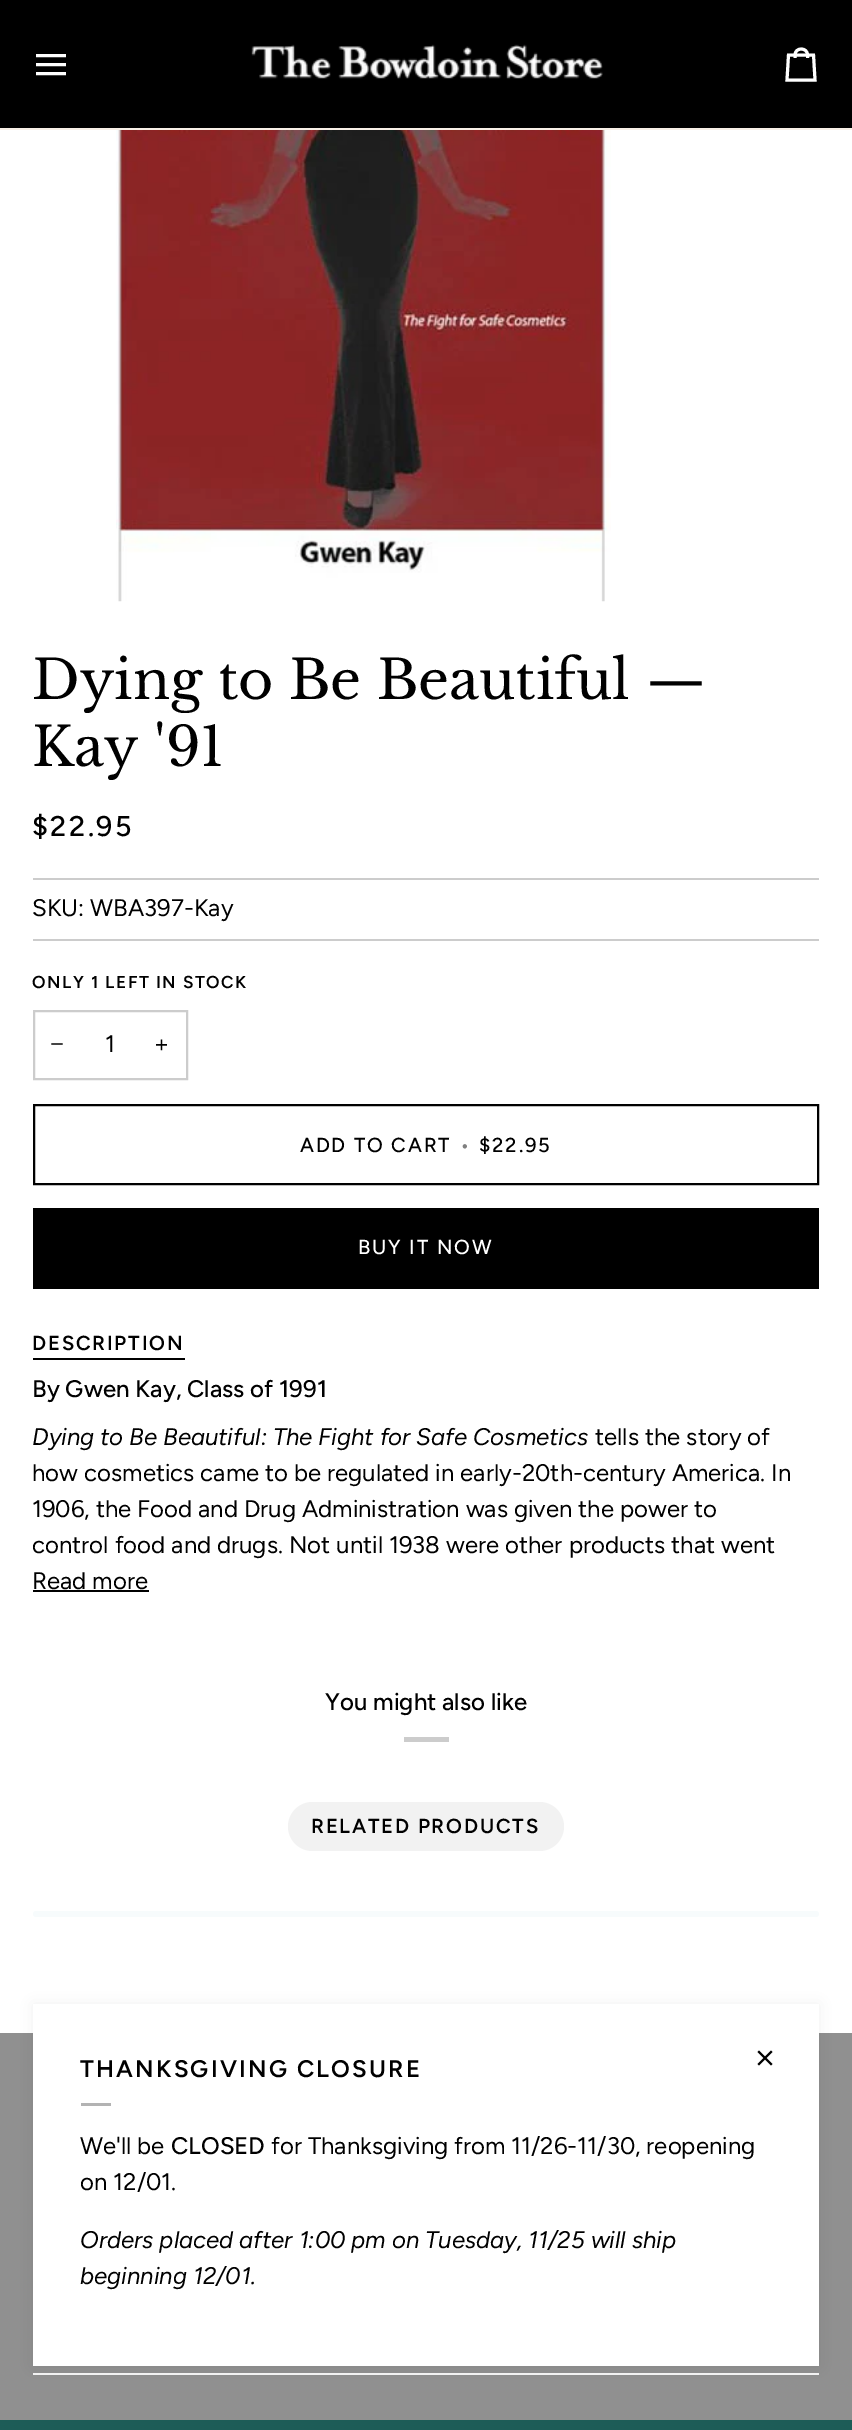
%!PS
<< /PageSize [852 2430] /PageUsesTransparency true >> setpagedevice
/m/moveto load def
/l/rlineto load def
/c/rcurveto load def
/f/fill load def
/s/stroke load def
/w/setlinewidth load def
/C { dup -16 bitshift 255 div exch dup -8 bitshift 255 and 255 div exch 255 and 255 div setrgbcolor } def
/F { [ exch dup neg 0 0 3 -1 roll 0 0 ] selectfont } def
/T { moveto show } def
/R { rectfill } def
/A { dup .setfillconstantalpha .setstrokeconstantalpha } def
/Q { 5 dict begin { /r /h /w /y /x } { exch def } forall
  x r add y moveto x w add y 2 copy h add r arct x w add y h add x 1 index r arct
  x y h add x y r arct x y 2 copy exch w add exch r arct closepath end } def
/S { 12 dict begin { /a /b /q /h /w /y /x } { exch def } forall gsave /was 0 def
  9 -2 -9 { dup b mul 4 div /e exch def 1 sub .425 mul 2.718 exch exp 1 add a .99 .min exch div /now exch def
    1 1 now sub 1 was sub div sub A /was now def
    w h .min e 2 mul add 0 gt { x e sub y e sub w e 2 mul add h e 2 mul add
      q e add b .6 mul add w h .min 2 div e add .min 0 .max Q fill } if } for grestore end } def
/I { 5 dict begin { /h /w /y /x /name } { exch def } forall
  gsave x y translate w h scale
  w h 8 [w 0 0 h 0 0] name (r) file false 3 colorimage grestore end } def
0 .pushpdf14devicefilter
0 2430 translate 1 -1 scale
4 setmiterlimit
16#FFFFFF C
0 0 852 2430 R
16#F8F0E7 C
0 128 852 2 R
16#000000 C
0 0 852 128 R
16#FFFFFF C
3 w
2 setlinecap
64.5 55.5 m -27 0 l 64.5 64.5 m -27 0 l 64.5 73.5 m -27 0 l s
(1.rgb) 251 44 352 35 I
0 setlinecap
807.5 58 m 0 -3 l 6 0 l 1.5 25 l -28 0 l 1.5 -25 l 6.5 0 l 0 -8 12.5 -8 12.5 0 c -12.5 0 l 0 3 l s
(2.rgb) 116 130 495 472 I
/LibreBaskerville-Regular 54 F
16#000000 C
(Dying to Be Beautiful —) 32 699 T
(Kay '91) 32 766 T
/Figtree-Medium 28.5 F
32 836 m 2.5 0 ($22.95) ashow
16#CCCCCC C
33 878 786 2 R
/Figtree-Regular 24 F
16#000000 C
(SKU: WBA397-Kay) 32 916 T
16#CCCCCC C
33 939 786 2 R
/Figtree-SemiBold 17.25 F
16#000000 C
32 988 m 1.55 0 (ONLY 1 LEFT IN STOCK) ashow
16#CCCCCC C
2 w
34 1011 153 68 rectstroke
/LiberationSans-Regular 24 F
16#000000 C
(−) 50 1052 T
/Figtree-Regular 24 F
(1) 105 1052 T
(+) 154 1052 T
34 1105 784 79 rectstroke
/Figtree-Medium 20.25 F
300 1152 m 1.8 0 (ADD TO CART) ashow
16#808080 C
460 1152 m 1.8 0 (•) ashow
16#000000 C
479 1152 m 1.8 0 ($22.95) ashow
33 1208 786 81 R
16#FFFFFF C
358 1254 m 1.8 0 (BUY IT NOW) ashow
16#000000 C
33 1358 152 2 R
/Figtree-SemiBold 20.25 F
32 1350 m 1.8 0 (DESCRIPTION) ashow
/Figtree-Medium 24 F
(By Gwen Kay, Class of 1991) 32 1397 T
/Figtree-Italic 24 F
(Dying to Be Beautiful: The Fight for Safe Cosmetics) 32 1445 T
/Figtree-Regular 24 F
(tells the story of) 595 1445 T
(how cosmetics came to be regulated in early-20th-century America. In) 32 1481 T
(1906, the Food and Drug Administration was given the power to) 32 1517 T
(control food and drugs. Not until 1938 were other products that went) 32 1553 T
(Read more) 32 1589 T
33 1590 116 2 R
/Figtree-Medium 24 F
(You might also like) 325 1710 T
16#CCCCCC C
404 1737 45 5 R
16#F2F2F2 C
288 1802 276 49 24.5 Q f
/Figtree-SemiBold 20.25 F
16#000000 C
311 1833 m 1.8 0 (RELATED PRODUCTS) ashow
16#F7FBFC C
33 1911 786 6 3 Q f
16#1D5C57 C
0 2420 852 10 R
16#909090 C
0 2033 852 387 R
16#F4F4F4 C
33 2373 786 2 R
16#000000 C
33 2004 786 362 0 7.5 .05 S
16#FFFFFF C
33 2004 786 362 R
/Figtree-SemiBold 24 F
16#000000 C
80 2077 m 2.2 0 (THANKSGIVING CLOSURE) ashow
2 setlinecap
771 2052 m -12 12 l 759 2052 m 12 12 l s
16#B3B3B3 C
81 2103 30 3 R
/Figtree-Regular 24 F
16#000000 C
(We'll be) 80 2154 T
/Figtree-Medium 24 F
(CLOSED) 171 2154 T
/Figtree-Regular 24 F
(for Thanksgiving from 11/26-11/30, reopening) 271 2154 T
(on 12/01.) 80 2190 T
/Figtree-Italic 24 F
(Orders placed after 1:00 pm on Tuesday, 11/25 will ship) 80 2248 T
(beginning 12/01.) 80 2284 T
.poppdf14devicefilter showpage
